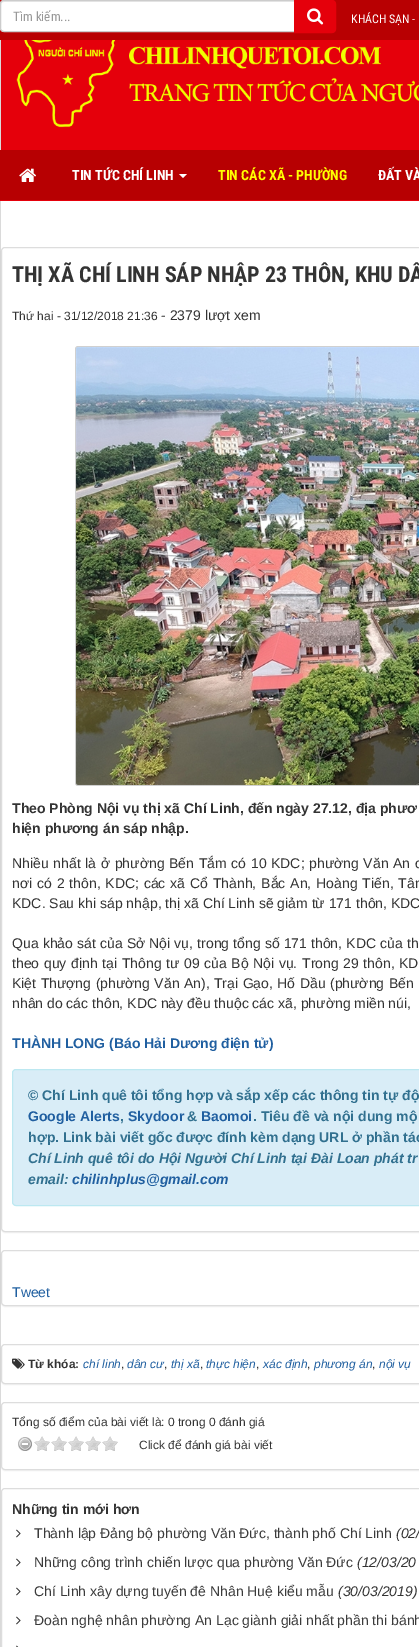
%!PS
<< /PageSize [419 1647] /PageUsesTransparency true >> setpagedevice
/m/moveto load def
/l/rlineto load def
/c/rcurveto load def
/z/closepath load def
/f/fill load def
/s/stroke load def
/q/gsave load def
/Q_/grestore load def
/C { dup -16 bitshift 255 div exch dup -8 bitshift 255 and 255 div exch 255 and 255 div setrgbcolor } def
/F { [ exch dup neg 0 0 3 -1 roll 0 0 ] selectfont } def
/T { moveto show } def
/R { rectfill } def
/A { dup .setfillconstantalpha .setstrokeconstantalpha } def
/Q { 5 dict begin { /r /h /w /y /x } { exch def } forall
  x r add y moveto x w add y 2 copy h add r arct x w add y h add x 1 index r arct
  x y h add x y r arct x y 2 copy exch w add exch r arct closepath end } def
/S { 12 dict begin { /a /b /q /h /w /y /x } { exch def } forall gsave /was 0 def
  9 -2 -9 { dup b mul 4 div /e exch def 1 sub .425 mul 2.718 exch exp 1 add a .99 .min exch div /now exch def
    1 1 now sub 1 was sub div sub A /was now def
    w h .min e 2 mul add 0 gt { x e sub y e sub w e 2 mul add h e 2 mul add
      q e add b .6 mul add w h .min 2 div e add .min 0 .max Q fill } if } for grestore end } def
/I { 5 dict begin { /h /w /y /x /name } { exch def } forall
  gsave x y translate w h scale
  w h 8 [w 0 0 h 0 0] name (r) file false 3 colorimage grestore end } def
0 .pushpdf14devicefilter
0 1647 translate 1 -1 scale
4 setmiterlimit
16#DADADA C
0 0 419 1647 R
16#B80002 C
0 0 419 40 R
16#FFFFFF C
4 0 m 291 0 l 0 32 l -291 0 l -2 0 -4 -2 -4 -4 c 0 -24 l 0 -2 2 -4 4 -4 c z f
16#ECECEC C
4 2 m 290 0 l 0 -1 l -290 0 l -2 0 -3 2 -3 4 c 0 -2 1 -3 3 -3 c z f
16#CCCCCC C
4 .5 m 290.5 0 l 0 31 l -290.5 0 l -2 0 -3.5 -1.5 -3.5 -3.5 c 0 -24 l 0 -2 1.5 -3.5 3.5 -3.5 c z s
/RobotoCondensed-Regular 13 F
16#999999 C
(Tìm kiếm...) 13 21 T
16#E5000B C
294.5 .5 m 37.5 0 l 2 0 3.5 1.5 3.5 3.5 c 0 25 l 0 2 -1.5 3.5 -3.5 3.5 c -37.5 0 l z q f Q_
s
(1.rgb) 307 8 17 17 I
/RobotoCondensed-Regular 12 F
16#FFFFFF C
(KHÁCH SẠN -) 351 23 T
16#E5000B C
1 40 418 110 R
(2.rgb) 16 40 403 88 I
16#B70002 C
0 150 419 50 R
16#E5000B C
0 200 419 1 R
(3.rgb) 19 168 17 14 I
/RobotoCondensed-Bold 14 F
16#FFFFFF C
(TIN TỨC CHÍ LINH) 72 180 T
179 174 m 8 0 l -4 4 l z f
16#FFFF00 C
(TIN CÁC XÃ - PHƯỜNG) 218 180 T
16#FFFFFF C
(ĐẤT VÀ) 378 180 T
1 201 418 1446 R
16#000000 C
1 248 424 985 4 .5 .05 S
16#FFFFFF C
1.5 247.5 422 984 3.5 Q q f Q_
16#DDDDDD C
s
/RobotoCondensed-Bold 22 F
16#333333 C
(THỊ XÃ CHÍ LINH SÁP NHẬP 23 THÔN, KHU DÂ) 12 282 T
/LiberationSans-Regular 12 F
(Thứ hai - 31/12/2018 21:36) 12 320 T
/LiberationSans-Regular 14 F
(- 2379 lượt xem) 161 320 T
16#D0D0D0 C
75 346 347 440 3 Q f
(4.rgb) 76 347 343 438 I
/LiberationSans-Bold 14 F
16#333333 C
(Theo Phòng Nội vụ thị xã Chí Linh, đến ngày 27.12, địa phươ) 12 813 T
(hiện phương án sáp nhập.) 12 833 T
/LiberationSans-Regular 14 F
12 868 m .8 0 32 (Nhiều nhất là ở phường Bến Tắm có 10 KDC; phường Văn An c) widthshow
12 888 m 1 0 32 (nơi có 2 thôn, KDC; các xã Cổ Thành, Bắc An, Hoàng Tiến, Tân) widthshow
(KDC. Sau khi sáp nhập, thị xã Chí Linh sẽ giảm từ 171 thôn, KDC) 12 908 T
12 948 m .25 0 32 (Qua khảo sát của Sở Nội vụ, trong tổng số 171 thôn, KDC của th) widthshow
12 968 m .75 0 32 (theo quy định tại Thông tư 09 của Bộ Nội vụ. Trong 29 thôn, KD) widthshow
12 988 m .6 0 32 (Kiệt Thượng \(phường Văn An\), Trại Gạo, Hố Dầu \(phường Bến) widthshow
(nhân do các thôn, KDC này đều thuộc các xã, phường miền núi,) 12 1008 T
/LiberationSans-Bold 14 F
16#205FA0 C
(THÀNH LONG \(Báo Hải Dương điện tử\)) 12 1048 T
16#D9EDF7 C
12.5 1069.5 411 136 3.5 Q q f Q_
16#BCE8F1 C
s
16#31708F C
(© Chí Linh quê tôi tổng hợp và sắp xếp các thông tin tự độ) 28 1100 T
16#205FA0 C
(Google Alerts) 28 1121 T
16#31708F C
(,) 120 1121 T
16#205FA0 C
(Skydoor) 128 1121 T
16#31708F C
(&) 187 1121 T
16#205FA0 C
(Baomoi) 201 1121 T
16#31708F C
(. Tiêu đề và nội dung mộ) 253 1121 T
(hợp. Link bài viết gốc được đính kèm dạng URL ở phần tác) 28 1142 T
/LiberationSans-BoldItalic 14 F
(Chí Linh quê tôi do Hội Người Chí Linh tại Đài Loan phát tr) 28 1163 T
(email:) 28 1184 T
16#205FA0 C
(chilinhplus@gmail.com) 72 1184 T
16#000000 C
1 1251 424 56 4 .5 .05 S
16#FFFFFF C
1.5 1250.5 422 55 3.5 Q q f Q_
16#DDDDDD C
s
/LiberationSans-Regular 14 F
16#205FA0 C
(Tweet) 12 1297 T
16#000000 C
1 1345 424 40 4 .5 .05 S
16#FFFFFF C
1.5 1344.5 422 39 3.5 Q q f Q_
16#DDDDDD C
s
(5.rgb) 12 1358 13 11 I
/LiberationSans-Bold 12 F
16#333333 C
(Từ khóa:) 28 1368 T
/LiberationSans-Italic 12 F
16#205FA0 C
(chí linh) 83 1368 T
/LiberationSans-Regular 12 F
16#333333 C
(,) 121 1368 T
/LiberationSans-Italic 12 F
16#205FA0 C
(dân cư) 127 1368 T
/LiberationSans-Regular 12 F
16#333333 C
(,) 164 1368 T
/LiberationSans-Italic 12 F
16#205FA0 C
(thị xã) 171 1368 T
/LiberationSans-Regular 12 F
16#333333 C
(,) 200 1368 T
/LiberationSans-Italic 12 F
16#205FA0 C
(thực hiện) 206 1368 T
/LiberationSans-Regular 12 F
16#333333 C
(,) 256 1368 T
/LiberationSans-Italic 12 F
16#205FA0 C
(xác định) 263 1368 T
/LiberationSans-Regular 12 F
16#333333 C
(,) 307 1368 T
/LiberationSans-Italic 12 F
16#205FA0 C
(phương án) 314 1368 T
/LiberationSans-Regular 12 F
16#333333 C
(,) 372 1368 T
/LiberationSans-Italic 12 F
16#205FA0 C
(nội vụ) 379 1368 T
16#000000 C
1 1403 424 68 4 .5 .05 S
16#FFFFFF C
1.5 1402.5 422 67 3.5 Q q f Q_
16#DDDDDD C
s
/LiberationSans-Regular 12 F
16#333333 C
(Tổng số điểm của bài viết là: 0 trong 0 đánh giá) 12 1426 T
(6.rgb) 18 1437 14 14 I
(7.rgb) 34 1436 16 15 I
(7.rgb) 51 1436 16 15 I
(7.rgb) 68 1436 16 15 I
(7.rgb) 85 1436 16 15 I
(7.rgb) 102 1436 16 15 I
(Click để đánh giá bài viết) 139 1449 T
16#DDDDDD C
1.5 1488.5 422 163 3.5 Q s
/LiberationSans-Bold 14 F
16#333333 C
(Những tin mới hơn) 12 1514 T
(8.rgb) 16 1529 5 9 I
/LiberationSans-Regular 14 F
16#3B3B3B C
(Thành lập Đảng bộ phường Văn Đức, thành phố Chí Linh) 34 1538 T
/LiberationSans-Italic 14 F
16#333333 C
(\(02/) 396 1538 T
(8.rgb) 16 1558 5 9 I
/LiberationSans-Regular 14 F
16#3B3B3B C
(Những công trình chiến lược qua phường Văn Đức) 34 1567 T
/LiberationSans-Italic 14 F
16#333333 C
(\(12/03/20) 357 1567 T
(8.rgb) 16 1587 5 9 I
/LiberationSans-Regular 14 F
16#3B3B3B C
(Chí Linh xây dựng tuyến đê Nhân Huệ kiểu mẫu) 34 1596 T
/LiberationSans-Italic 14 F
16#333333 C
(\(30/03/2019\)) 338 1596 T
(8.rgb) 16 1616 5 9 I
/LiberationSans-Regular 14 F
16#3B3B3B C
(Đoàn nghệ nhân phường An Lạc giành giải nhất phần thi bánh) 34 1625 T
(9.rgb) 16 1645 3 2 I
.poppdf14devicefilter showpage
